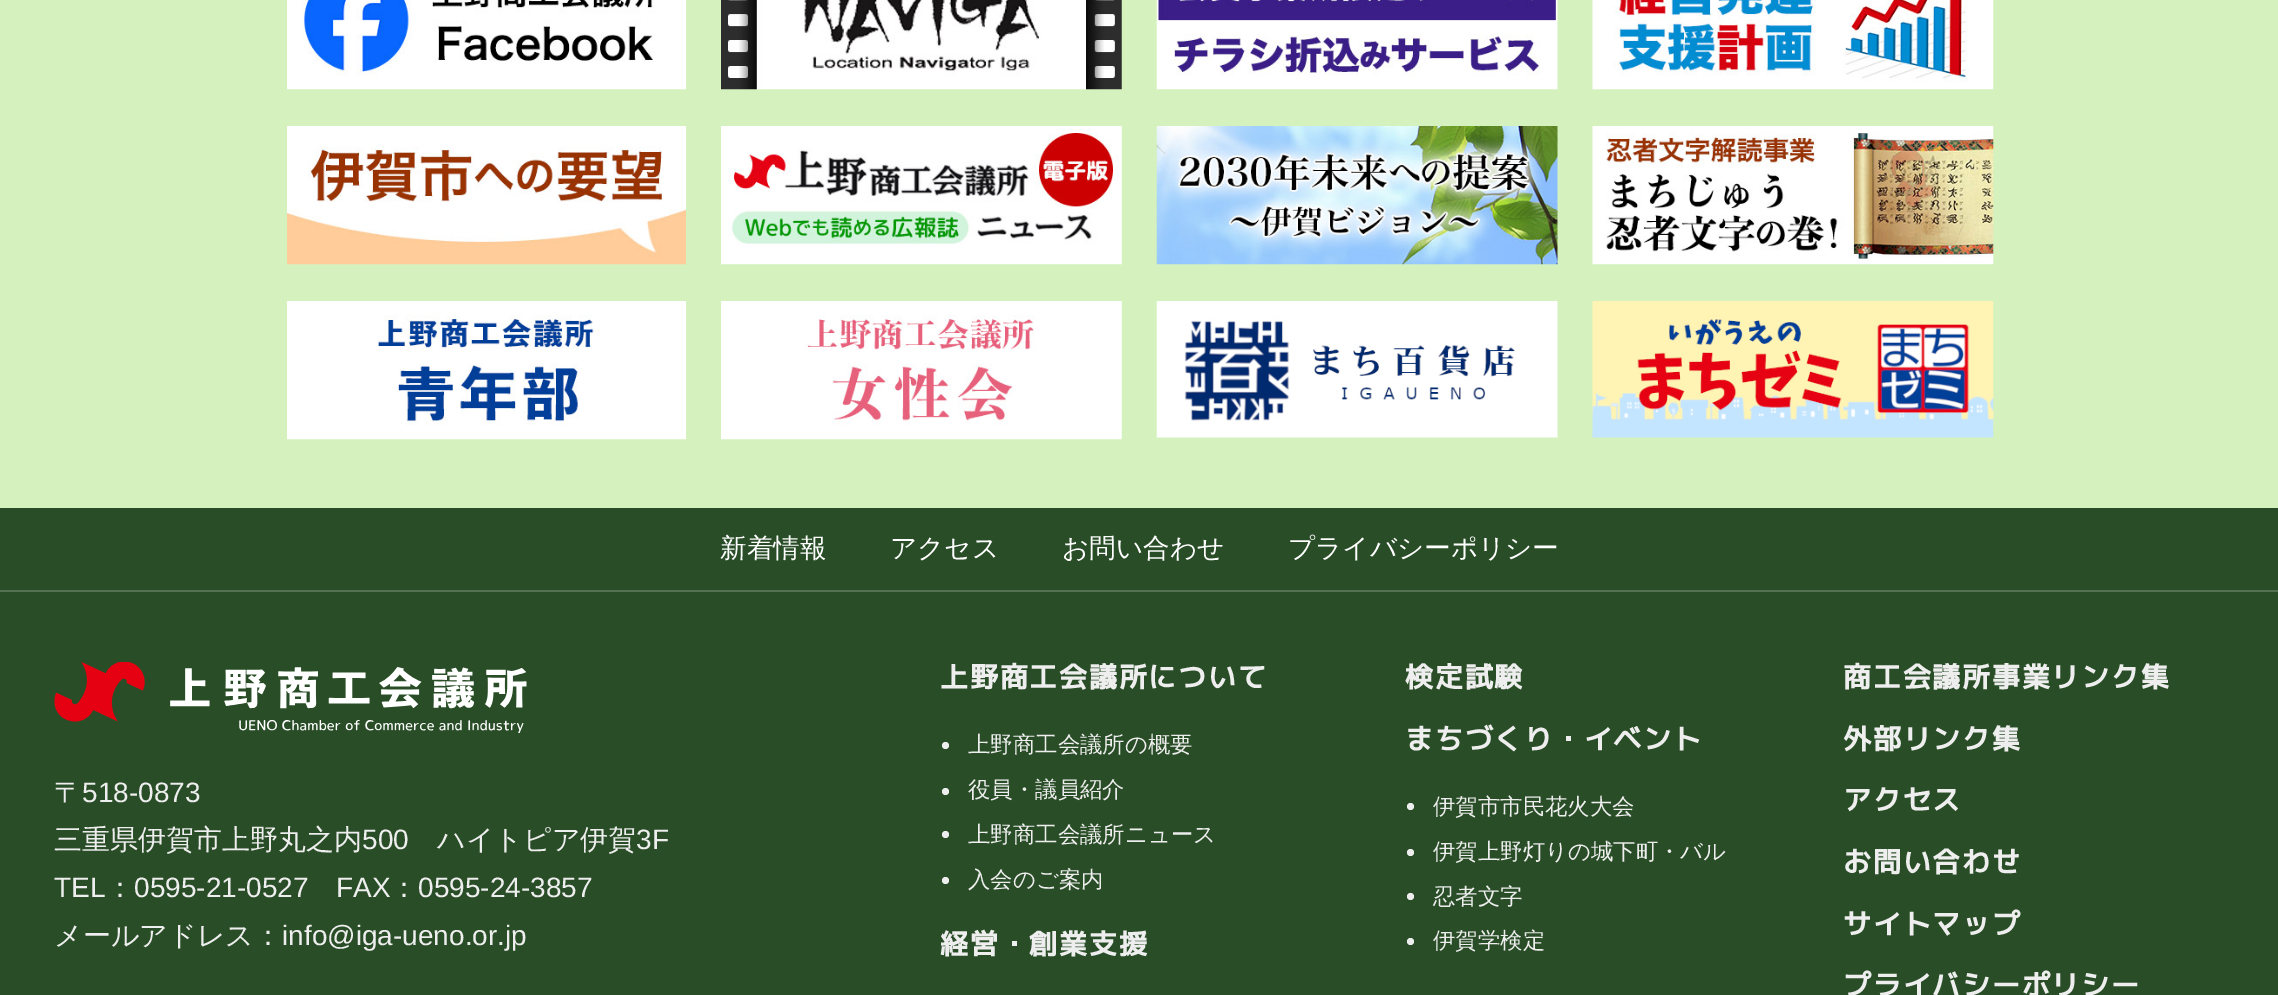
%!PS
<< /PageSize [2278 995] >> setpagedevice
/m/moveto load def
/f/fill load def
/C { dup -16 bitshift 255 div exch dup -8 bitshift 255 and 255 div exch 255 and 255 div setrgbcolor } def
/F { [ exch dup neg 0 0 3 -1 roll 0 0 ] selectfont } def
/T { moveto show } def
/R { rectfill } def
/O { newpath 0 360 arc closepath } def
/I { 5 dict begin { /h /w /y /x /name } { exch def } forall
  gsave x y translate w h scale
  w h 8 [w 0 0 h 0 0] name (r) file false 3 colorimage grestore end } def
0 995 translate 1 -1 scale
4 setmiterlimit
16#D4F1BE C
0 0 2278 995 R
(1.rgb) 287 0 399 90 I
(2.rgb) 721 0 401 90 I
(3.rgb) 1156 0 402 90 I
(4.rgb) 1592 0 402 90 I
(5.rgb) 287 126 399 139 I
(6.rgb) 721 126 401 139 I
(7.rgb) 1156 126 402 139 I
(8.rgb) 1592 126 402 139 I
(9.rgb) 287 301 399 139 I
(10.rgb) 721 301 401 139 I
(11.rgb) 1156 301 402 137 I
(12.rgb) 1592 301 402 137 I
16#294E27 C
0 508 2278 487 R
16#547152 C
0 590 2278 2 R
/WenQuanYiZenHei-Medium 26.6 F
16#FFFFFF C
(新着情報) 720 557 T
(アクセス) 890 557 T
(お問い合わせ) 1062 557 T
(プライバシーポリシー) 1288 557 T
(13.rgb) 54 662 473 71 I
/WenQuanYiZenHei-Medium 28 F
16#EEEEEE C
(〒) 54 802 T
/LiberationSans-Regular 28 F
(518-0873) 82 802 T
/WenQuanYiZenHei-Medium 28 F
(三重県伊賀市上野丸之内) 54 849 T
/LiberationSans-Regular 28 F
(500) 362 849 T
/WenQuanYiZenHei-Medium 28 F
(ハイトピア伊賀) 437 849 T
/LiberationSans-Regular 28 F
(3F) 636 849 T
(TEL) 54 897 T
/WenQuanYiZenHei-Medium 28 F
(：) 106 897 T
/LiberationSans-Regular 28 F
(0595-21-0527) 134 897 T
(FAX) 336 897 T
/WenQuanYiZenHei-Medium 28 F
(：) 390 897 T
/LiberationSans-Regular 28 F
(0595-24-3857) 418 897 T
/WenQuanYiZenHei-Medium 28 F
(メールアドレス：) 54 945 T
/LiberationSans-Regular 28 F
(info@iga-ueno.or.jp) 282 945 T
/MPLUS1p-Bold 28 F
940 687 m 1.75 0 (上野商工会議所について) ashow
945.5 745.5 3.5 O f
/WenQuanYiZenHei-Medium 22.4 F
(上野商工会議所の概要) 968 752 T
945.5 791.5 3.5 O f
(役員・議員紹介) 968 797 T
945.5 834.5 3.5 O f
(上野商工会議所ニュース) 968 842 T
945.5 880.5 3.5 O f
(入会のご案内) 968 887 T
/MPLUS1p-Bold 28 F
940 954 m 1.75 0 (経営・創業支援) ashow
1405 687 m 1.75 0 (検定試験) ashow
1405 749 m 1.75 0 (まちづくり・イベント) ashow
1410.5 806.5 3.5 O f
/WenQuanYiZenHei-Medium 22.4 F
(伊賀市市民花火大会) 1433 814 T
1410.5 852.5 3.5 O f
(伊賀上野灯りの城下町・バル) 1433 859 T
1410.5 896.5 3.5 O f
(忍者文字) 1433 904 T
1410.5 941.5 3.5 O f
(伊賀学検定) 1433 948 T
/MPLUS1p-Bold 28 F
1843 687 m 1.75 0 (商工会議所事業リンク集) ashow
1843 749 m 1.75 0 (外部リンク集) ashow
1843 810 m 1.75 0 (アクセス) ashow
1843 872 m 1.75 0 (お問い合わせ) ashow
1843 934 m 1.75 0 (サイトマップ) ashow
1843 995 m 1.75 0 (プライバシーポリシー) ashow
showpage
